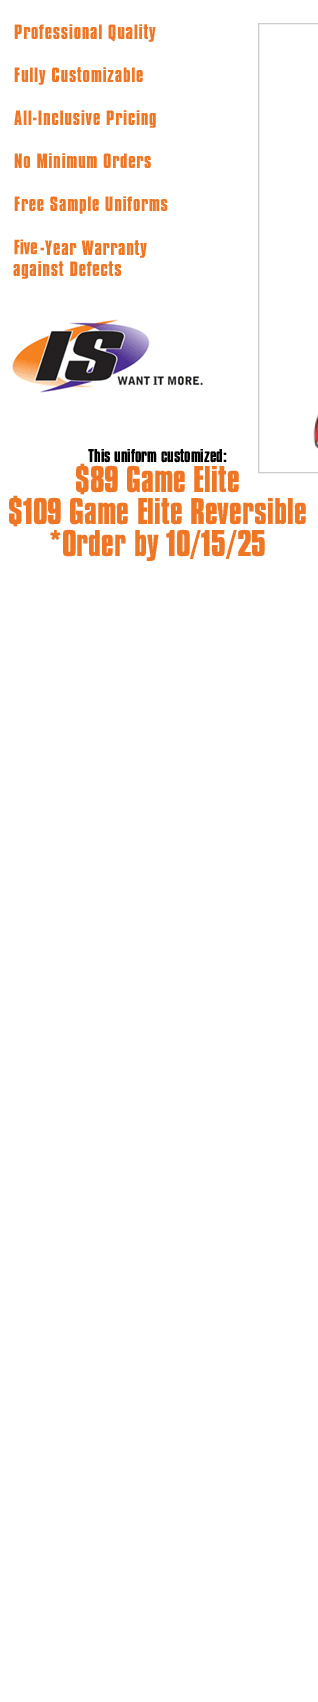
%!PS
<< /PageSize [318 1702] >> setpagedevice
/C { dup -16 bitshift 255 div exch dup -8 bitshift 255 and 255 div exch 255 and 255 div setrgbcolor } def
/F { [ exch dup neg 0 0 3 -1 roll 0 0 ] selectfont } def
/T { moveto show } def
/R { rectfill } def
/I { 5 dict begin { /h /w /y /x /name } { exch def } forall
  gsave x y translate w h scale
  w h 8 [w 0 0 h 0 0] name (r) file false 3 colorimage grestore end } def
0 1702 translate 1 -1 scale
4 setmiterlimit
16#FFFFFF C
0 0 318 1702 R
(1.rgb) 12 24 191 369 I
16#CCCCCC C
258.5 23.5 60 449 rectstroke
(2.rgb) 313 414 5 36 I
/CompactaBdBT-Bold 16 F
16#000000 C
(This uniform customized:) 88 462 T
/CompactaBdBT-Bold 32 F
16#EE7624 C
($89 Game Elite) 75 492 T
($109 Game Elite Reversible) 8 524 T
(*Order by 10/15/25) 49 556 T
showpage
